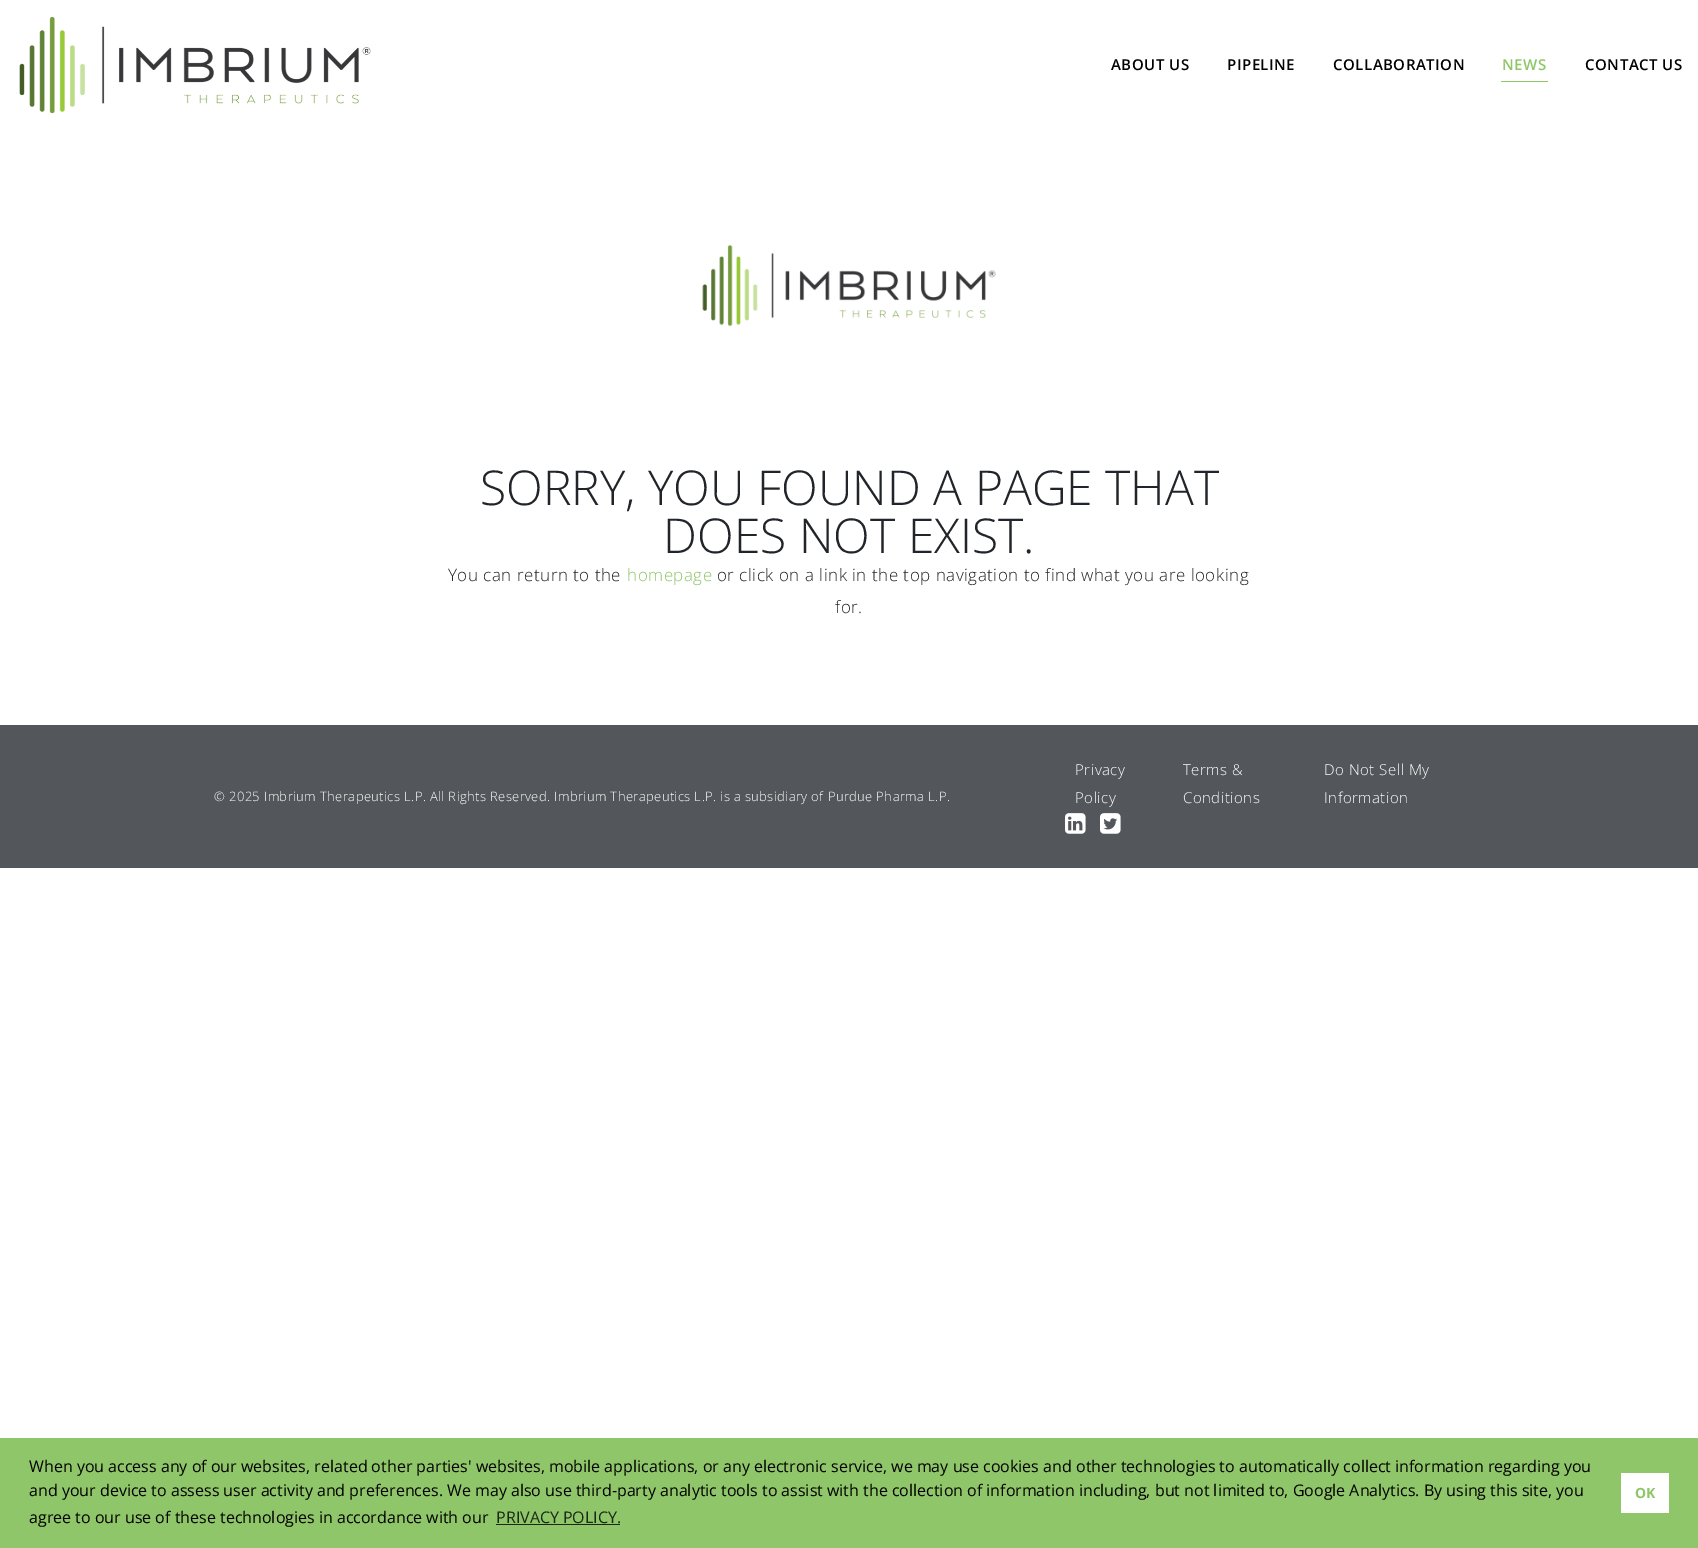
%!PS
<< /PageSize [1698 1548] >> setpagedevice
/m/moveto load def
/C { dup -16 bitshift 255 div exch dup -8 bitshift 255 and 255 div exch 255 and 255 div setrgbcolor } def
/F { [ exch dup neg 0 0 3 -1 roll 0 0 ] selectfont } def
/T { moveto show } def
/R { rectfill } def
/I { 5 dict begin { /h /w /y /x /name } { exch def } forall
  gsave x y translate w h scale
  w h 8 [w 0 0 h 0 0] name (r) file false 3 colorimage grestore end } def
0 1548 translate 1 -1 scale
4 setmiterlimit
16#FFFFFF C
0 0 1698 1548 R
(1.rgb) 19 16 352 98 I
/OpenSans-SemiBold 15 F
16#000000 C
1111 70 m .5 0 (ABOUT US) ashow
1227 70 m .5 0 (PIPELINE) ashow
1333 70 m .5 0 (COLLABORATION) ashow
16#8EC668 C
1501 81 47 1 R
1502 70 m .5 0 (NEWS) ashow
16#000000 C
1585 70 m .5 0 (CONTACT US) ashow
(2.rgb) 702 244 294 83 I
/OpenSans-Light 48 F
16#212529 C
(SORRY, YOU FOUND A PAGE THAT) 480 505 T
(DOES NOT EXIST.) 663 553 T
/OpenSans-Light 17 F
448 581 m .5 0 (You can return to the) ashow
16#8EC668 C
627 581 m .5 0 (homepage) ashow
16#212529 C
717 581 m .5 0 (or click on a link in the top navigation to find what you are looking) ashow
835 613 m .5 0 (for.) ashow
16#53565A C
0 725 1698 143 R
/OpenSans-Light 13 F
16#FFFFFF C
214 801 m .39 0 (© 2025 Imbrium Therapeutics L.P. All Rights Reserved. Imbrium Therapeutics L.P. is a subsidiary of Purdue Pharma L.P.) ashow
/OpenSans-Light 15 F
1075 775 m .5 0 (Privacy) ashow
1075 803 m .5 0 (Policy) ashow
1183 775 m .5 0 (Terms &) ashow
1183 803 m .5 0 (Conditions) ashow
1324 775 m .5 0 (Do Not Sell My) ashow
1324 803 m .5 0 (Information) ashow
(3.rgb) 1065 813 21 21 I
(4.rgb) 1100 813 21 21 I
16#8EC669 C
0 1438 1698 110 R
/OpenSans-Regular 16 F
16#000000 C
(When you access any of our websites, related other parties' websites, mobile applications, or any electronic service, we may use cookies and other technologies to automatically collect information regarding you) 29 1472 T
(and your device to assess user activity and preferences. We may also use third-party analytic tools to assist with the collection of information including, but not limited to, Google Analytics. By using this site, you) 29 1496 T
(agree to our use of these technologies in accordance with our) 29 1523 T
16#1C2815 C
(PRIVACY POLICY.) 496 1523 T
496 1524 124 1 R
16#FFFFFF C
1621 1473 48 40 R
/OpenSans-Bold 14 F
16#8EC668 C
(OK) 1635 1498 T
showpage
